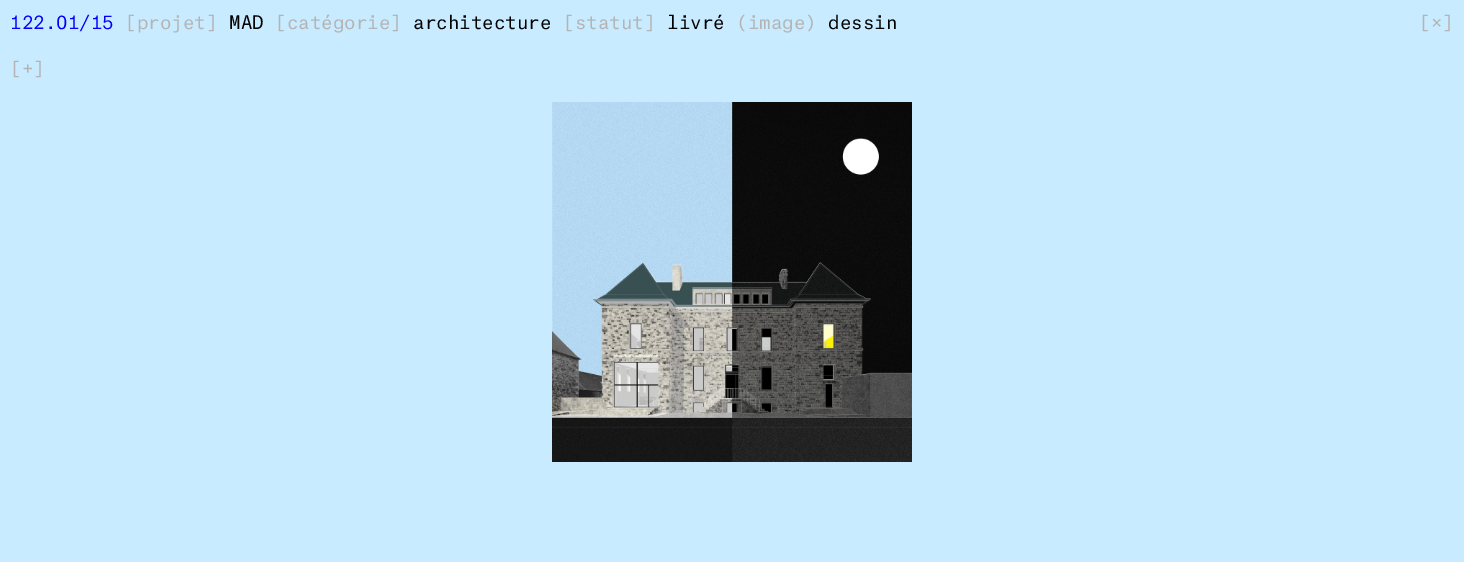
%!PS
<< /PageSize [1464 562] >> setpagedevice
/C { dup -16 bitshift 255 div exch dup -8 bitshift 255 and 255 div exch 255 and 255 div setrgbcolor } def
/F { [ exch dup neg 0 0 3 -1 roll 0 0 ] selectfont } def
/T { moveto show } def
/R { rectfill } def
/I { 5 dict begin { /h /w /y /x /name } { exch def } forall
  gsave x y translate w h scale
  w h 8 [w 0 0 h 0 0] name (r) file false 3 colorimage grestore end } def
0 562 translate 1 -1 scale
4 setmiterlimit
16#C8EBFF C
0 0 1464 562 R
/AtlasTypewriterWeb-Regular 18 F
16#0000FF C
(122.01/15) 10 29 T
16#B4B4B4 C
([projet]) 125 29 T
16#000000 C
(MAD) 229 29 T
16#B4B4B4 C
([catégorie]) 275 29 T
16#000000 C
(architecture) 413 29 T
16#B4B4B4 C
([statut]) 563 29 T
16#000000 C
(livré) 667 29 T
16#B4B4B4 C
(\(image\)) 736 29 T
16#000000 C
(dessin) 828 29 T
16#B4B4B4 C
([+]) 10 75 T
([×]) 1419 29 T
(1.rgb) 552 102 360 360 I
showpage
